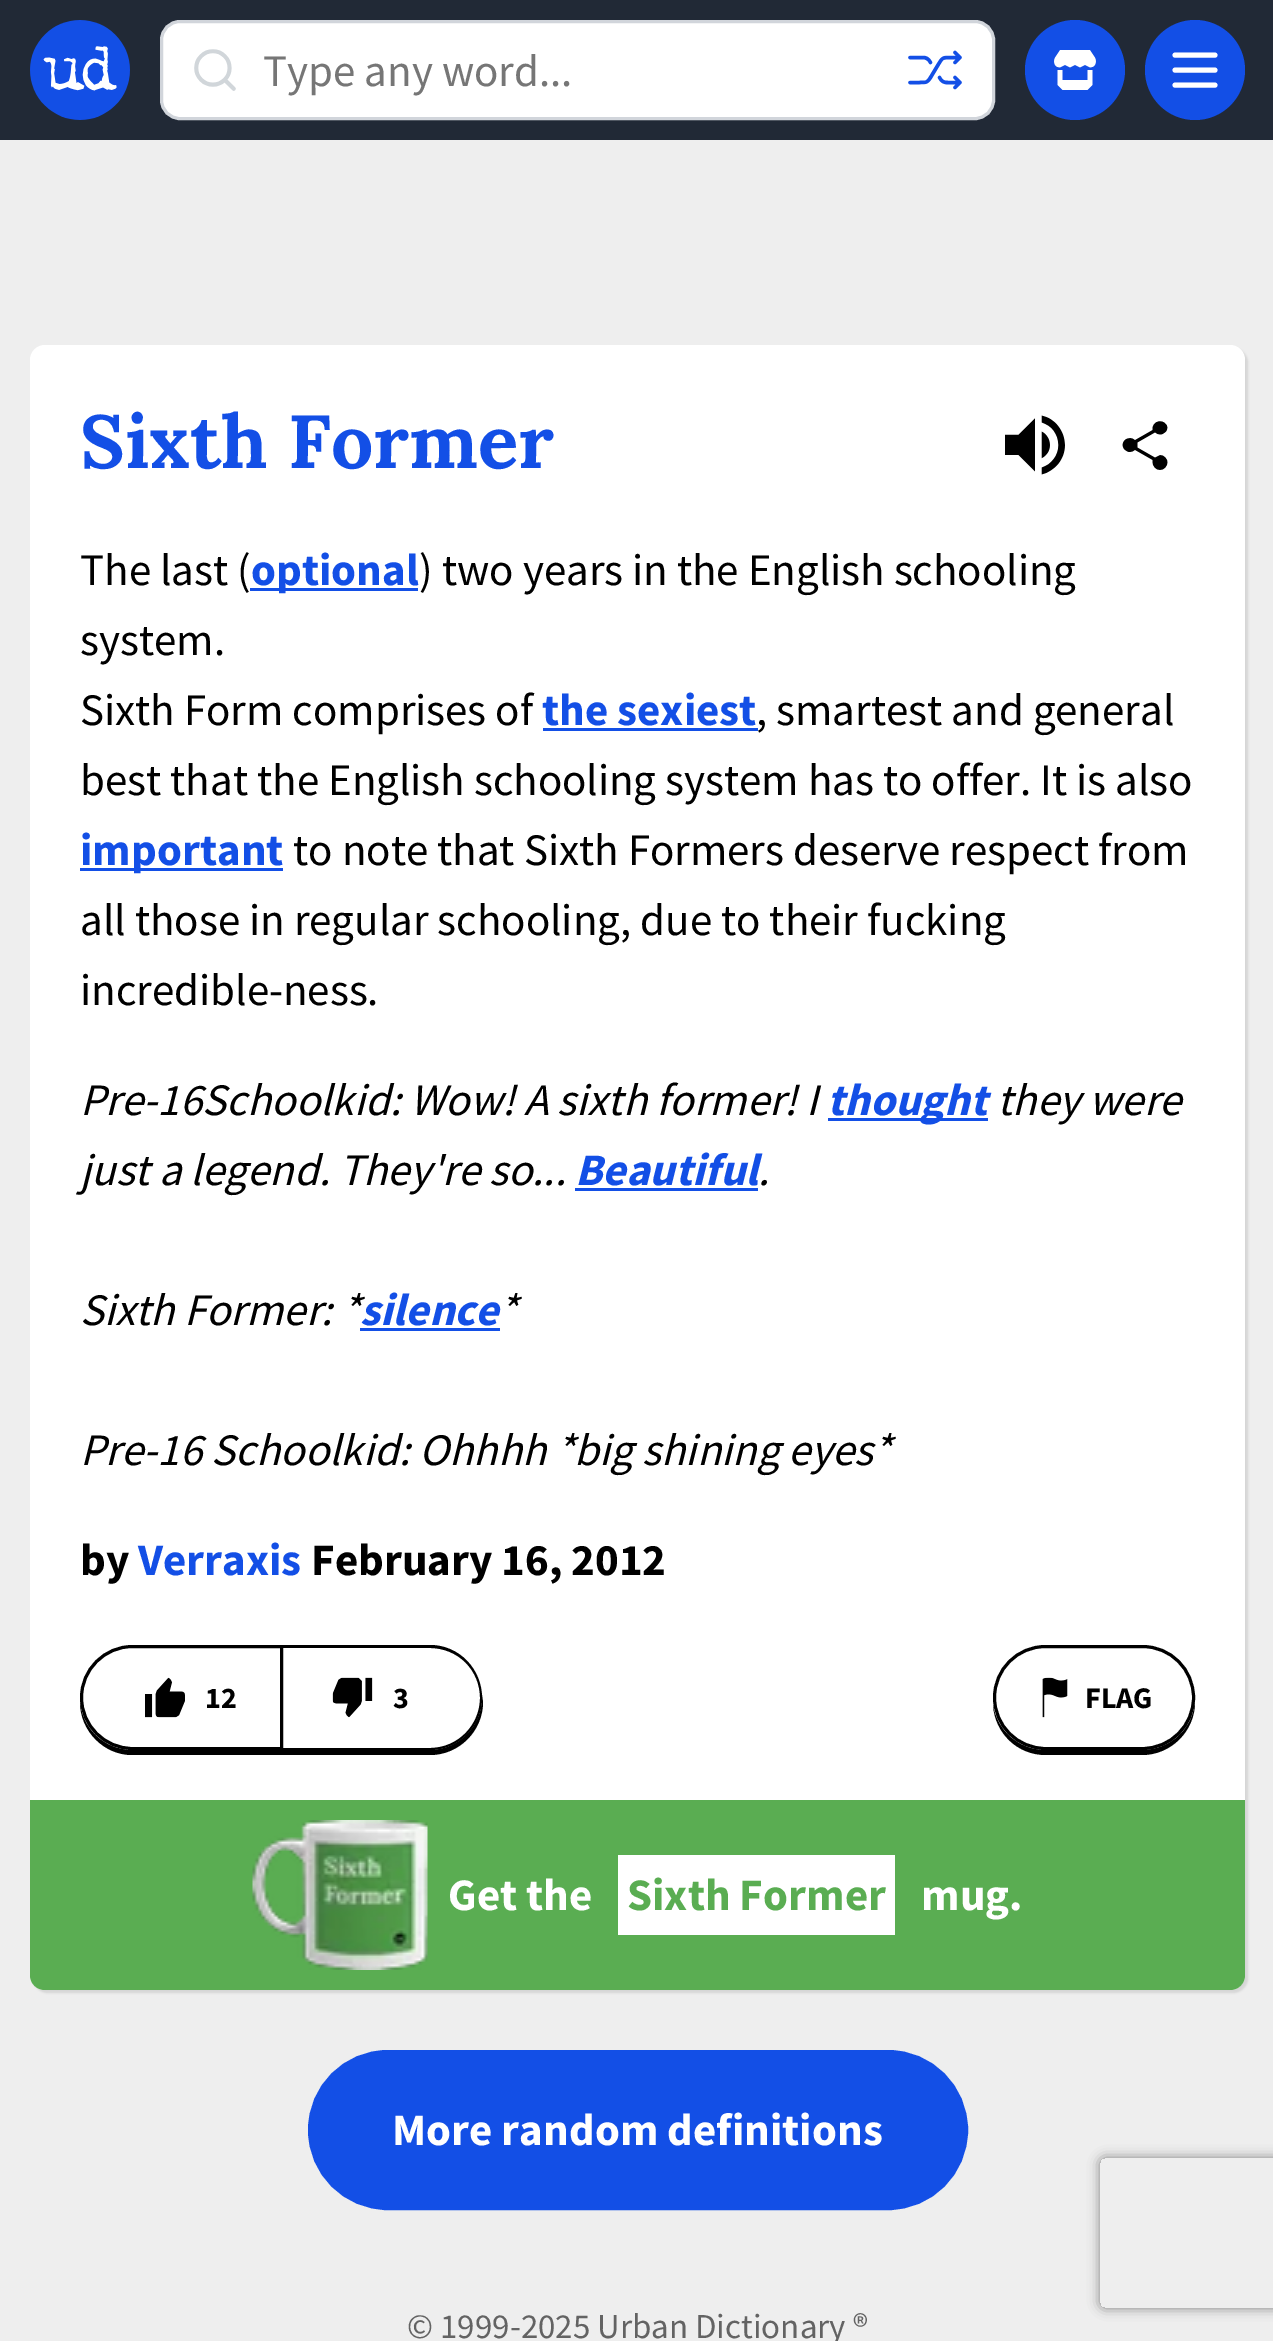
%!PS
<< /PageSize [1273 2341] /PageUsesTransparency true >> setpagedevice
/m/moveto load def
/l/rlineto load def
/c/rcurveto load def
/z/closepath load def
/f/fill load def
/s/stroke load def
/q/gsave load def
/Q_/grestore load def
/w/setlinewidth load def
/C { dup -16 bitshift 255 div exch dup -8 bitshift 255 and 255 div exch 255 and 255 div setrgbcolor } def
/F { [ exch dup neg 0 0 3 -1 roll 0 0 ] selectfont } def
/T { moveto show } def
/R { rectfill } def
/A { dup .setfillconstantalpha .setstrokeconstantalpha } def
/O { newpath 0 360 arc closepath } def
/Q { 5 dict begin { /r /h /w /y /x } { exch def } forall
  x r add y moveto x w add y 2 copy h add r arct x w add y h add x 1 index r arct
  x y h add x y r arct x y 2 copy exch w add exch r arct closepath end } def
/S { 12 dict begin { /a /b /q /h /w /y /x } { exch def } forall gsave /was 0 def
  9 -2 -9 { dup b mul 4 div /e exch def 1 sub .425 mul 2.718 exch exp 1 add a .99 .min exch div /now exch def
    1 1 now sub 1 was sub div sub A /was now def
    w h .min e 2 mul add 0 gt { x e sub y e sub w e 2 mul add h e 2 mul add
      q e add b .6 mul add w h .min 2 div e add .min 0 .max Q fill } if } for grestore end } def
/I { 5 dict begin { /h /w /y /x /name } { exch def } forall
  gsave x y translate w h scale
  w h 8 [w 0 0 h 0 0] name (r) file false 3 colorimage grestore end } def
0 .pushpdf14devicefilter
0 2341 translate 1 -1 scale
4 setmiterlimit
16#EEEEEE C
0 0 1273 2341 R
16#212936 C
0 0 1273 140 R
(1.rgb) 30 20 100 100 I
16#FFFFFF C
161.5 21.5 832 97 18.5 Q q f Q_
16#D1D5DB C
3 w
s
(2.rgb) 194 49 42 42 I
/SourceSansPro-Regular 45 F
16#767676 C
(Type any word...) 263 86 T
(3.rgb) 908 50 54 40 I
16#134FE6 C
1075 70 50 O f
(4.rgb) 1054 50 42 40 I
1195 70 50 O f
16#FFFFFF C
5 w
1 setlinecap
1 setlinejoin
1175 55 m 40 0 l 1175 70 m 40 0 l 1175 85 m 40 0 l s
16#000000 C
33 348 1215 1645 15 1 .1 S
16#FFFFFF C
30 345 1215 1645 15 Q f
/Lora-Bold 75 F
16#134FE6 C
(Sixth Former) 80 468 T
(5.rgb) 1005 415 60 60 I
(6.rgb) 1122 421 46 49 I
/SourceSansPro-Regular 45 F
16#000000 C
(The last \() 80 585 T
16#134FE6 C
250 588 168 3 R
/SourceSansPro-Bold 45 F
(optional) 251 585 T
/SourceSansPro-Regular 45 F
16#000000 C
(\) two years in the English schooling) 419 585 T
(system.) 80 655 T
(Sixth Form comprises of) 80 725 T
/SourceSansPro-Bold 45 F
16#134FE6 C
(the sexiest) 542 725 T
543 728 215 3 R
/SourceSansPro-Regular 45 F
16#000000 C
(, smartest and general) 756 725 T
(best that the English schooling system has to offer. It is also) 80 795 T
16#134FE6 C
80 868 203 3 R
/SourceSansPro-Bold 45 F
(important) 80 865 T
/SourceSansPro-Regular 45 F
16#000000 C
(to note that Sixth Formers deserve respect from) 293 865 T
(all those in regular schooling, due to their fucking) 80 935 T
(incredible-ness.) 80 1005 T
/SourceSansPro-Italic 45 F
(Pre-16Schoolkid: Wow! A sixth former! I) 80 1115 T
16#134FE6 C
828 1118 160 3 R
/SourceSansPro-BoldItalic 45 F
(thought) 827 1115 T
/SourceSansPro-Italic 45 F
16#000000 C
(they were) 997 1115 T
(just a legend. They're so...) 80 1185 T
/SourceSansPro-BoldItalic 45 F
16#134FE6 C
(Beautiful) 575 1185 T
575 1188 183 3 R
/SourceSansPro-Italic 45 F
16#000000 C
(.) 758 1185 T
(Sixth Former: *) 80 1325 T
/SourceSansPro-BoldItalic 45 F
16#134FE6 C
(silence) 360 1325 T
360 1328 140 3 R
/SourceSansPro-Italic 45 F
16#000000 C
(*) 499 1325 T
(Pre-16 Schoolkid: Ohhhh *big shining eyes*) 80 1465 T
/SourceSansPro-Bold 45 F
(by) 80 1575 T
16#134FE6 C
(Verraxis) 138 1575 T
16#000000 C
(February 16, 2012) 311 1575 T
80 1700 m 0 2 l 0 29 24 53 52 53 c 151 0 l 0 -105 l -1 0 l 0 100 l -150 0 l -28 0 -51 -22 -52 -50 c z f
3 w
0 setlinecap
0 setlinejoin
132.5 1646.5 m 149 0 l 0 102 l -149 0 l -28 0 -51 -23 -51 -51 c 0 -28 23 -51 51 -51 c z s
(7.rgb) 145 1677 40 41 I
/SourceSansPro-Bold 30 F
(12) 205 1708 T
283 1750 m 0 5 l 147 0 l 29 0 53 -24 53 -53 c -1 -7 l 0 3 l 0 28 -23 52 -52 52 c z f
282 1645 m 148 0 l 29 0 52 24 52 53 c 0 28 -23 52 -52 52 c -148 0 l z 282 1648 m 148 0 l 28 0 50 22 50 50 c 0 27 -22 50 -50 50 c -148 0 l z eofill
(8.rgb) 332 1677 41 41 I
(3) 393 1708 T
993 1705 m 2 28 24 50 53 50 c 96 0 l 29 0 53 -24 53 -53 c 0 -2 l -1 28 -24 50 -53 50 c -97 0 l -26 0 -48 -19 -52 -45 c z f
994.5 1646.5 199 102 51 Q s
(9.rgb) 1042 1677 26 41 I
(FLAG) 1085 1708 T
16#5AAD52 C
30 1800 m 1215 0 l 0 175 l 0 8.5 -6.5 15 -15 15 c -1185 0 l -8.5 0 -15 -6.5 -15 -15 c z f
(10.rgb) 252 1820 176 150 I
/SourceSansPro-Bold 45 F
16#FFFFFF C
(Get the) 448 1910 T
618 1855 277 80 R
16#5AAD52 C
(Sixth Former) 627 1910 T
16#FFFFFF C
(mug.) 921 1910 T
16#134FE6 C
310.5 2052.5 655 155 77.5 Q q f Q_
5 w
s
16#FFFFFF C
(More random definitions) 392 2145 T
/SourceSansPro-Regular 35 F
16#636363 C
(© 1999-2025 Urban Dictionary ®) 407 2338 T
q
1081 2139 m 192 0 l 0 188 l -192 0 l z 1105 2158 m 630 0 l 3 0 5 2 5 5 c 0 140 l 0 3 -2 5 -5 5 c -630 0 l -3 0 -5 -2 -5 -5 c 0 -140 l 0 -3 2 -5 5 -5 c z eoclip newpath
16#808080 C
1100 2158 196 150 5 6 1 S
Q_
.poppdf14devicefilter showpage
